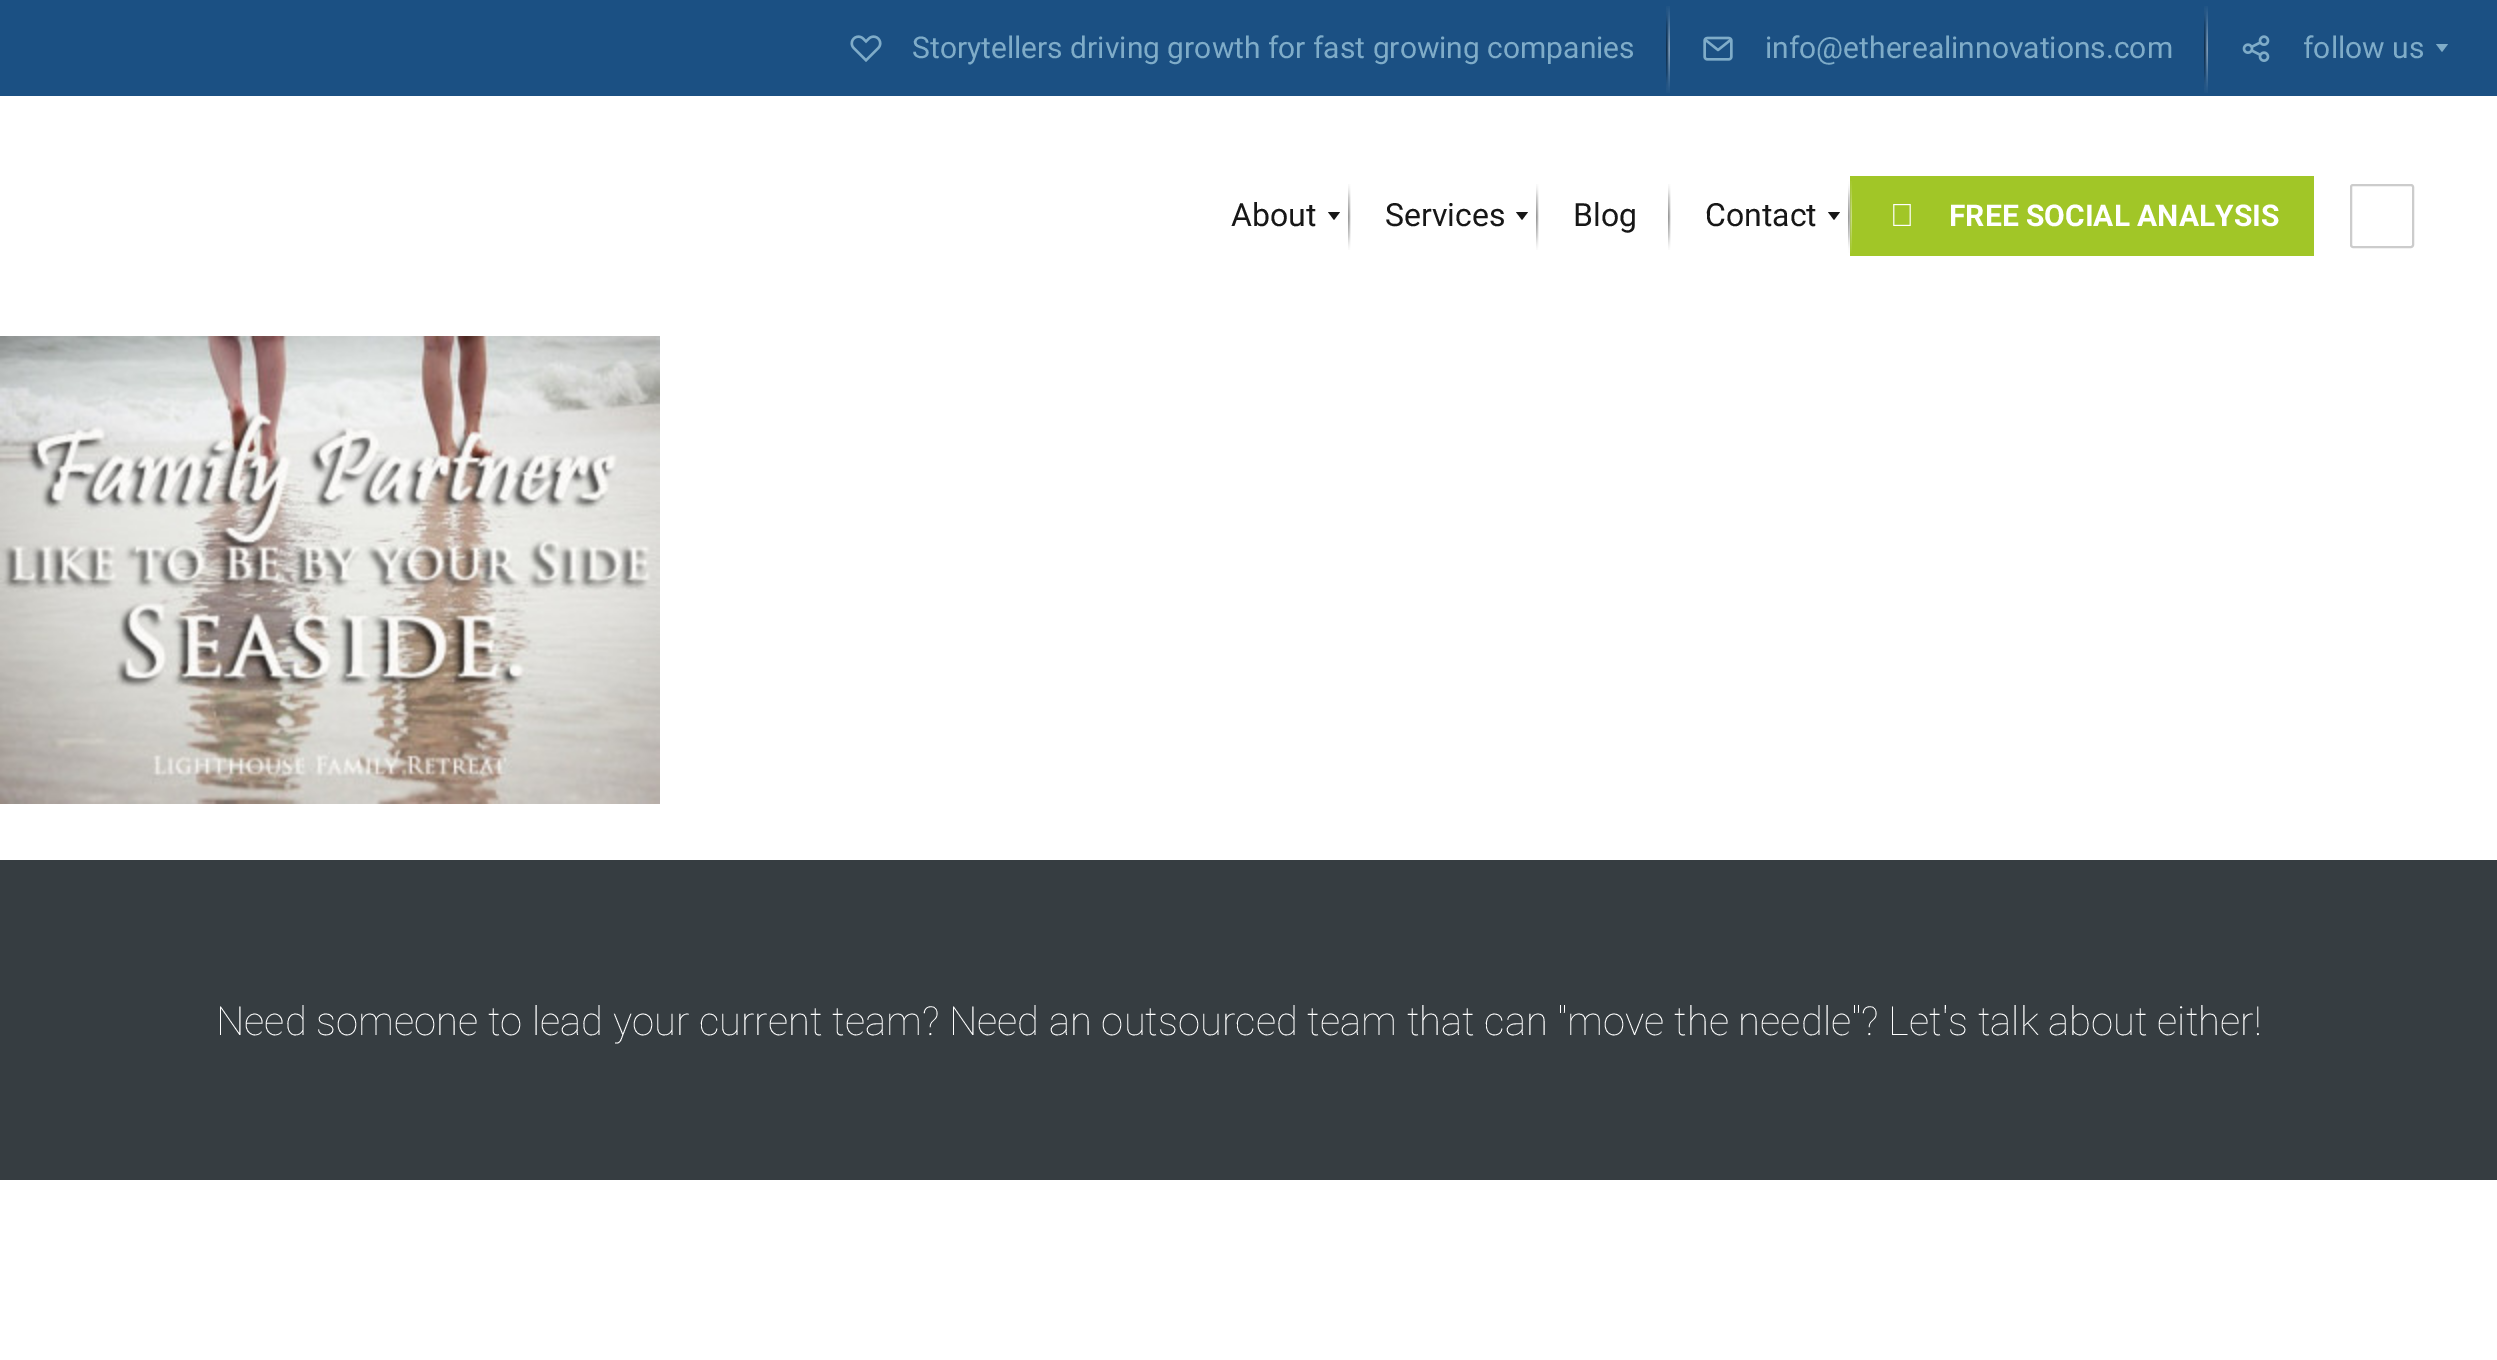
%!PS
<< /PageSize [2497 1360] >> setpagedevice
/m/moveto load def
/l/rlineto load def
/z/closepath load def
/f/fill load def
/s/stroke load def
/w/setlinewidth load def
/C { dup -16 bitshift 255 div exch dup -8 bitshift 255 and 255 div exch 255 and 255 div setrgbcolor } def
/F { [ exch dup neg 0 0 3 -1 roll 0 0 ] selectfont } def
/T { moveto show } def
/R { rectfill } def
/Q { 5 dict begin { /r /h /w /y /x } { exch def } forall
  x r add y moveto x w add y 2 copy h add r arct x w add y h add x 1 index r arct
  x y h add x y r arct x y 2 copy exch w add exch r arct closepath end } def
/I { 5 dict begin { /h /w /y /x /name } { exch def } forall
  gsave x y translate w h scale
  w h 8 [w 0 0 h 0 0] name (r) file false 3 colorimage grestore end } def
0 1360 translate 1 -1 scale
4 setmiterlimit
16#FFFFFF C
0 0 2497 1360 R
16#1B5083 C
0 0 2497 96 R
(1.rgb) 850 35 32 27 I
/Roboto-Regular 30 F
16#7FACC8 C
(Storytellers driving growth for fast growing companies) 912 58 T
(2.rgb) 1666 6 4 87 I
(3.rgb) 1703 36 30 25 I
(info@etherealinnovations.com) 1765 58 T
(2.rgb) 2204 6 4 87 I
(4.rgb) 2242 35 28 27 I
(follow us) 2303 58 T
2436 44 m 12 0 l -6 8 l z f
/Roboto-Regular 32 F
16#171717 C
(About) 1231 226 T
1328 212 m 12 0 l -6 8 l z f
(5.rgb) 1348 184 3 66 I
(Services) 1385 226 T
1516 212 m 12 0 l -6 8 l z f
(5.rgb) 1536 184 3 66 I
(Blog) 1573 226 T
(5.rgb) 1668 184 3 66 I
(Contact) 1705 226 T
1828 212 m 12 0 l -6 8 l z f
16#A1C627 C
1850 176 464 80 R
(6.rgb) 1848 181 4 72 I
(7.rgb) 1893 204 18 22 I
/Roboto-Bold 30 F
16#FFFFFF C
(FREE SOCIAL ANALYSIS) 1949 226 T
16#CCCCCC C
2 w
2351 185 62 62 2 Q s
(8.rgb) 0 336 660 468 I
16#363D41 C
0 860 2497 320 R
/Roboto-Thin 40 F
16#FFFFFF C
(Need someone to lead your current team? Need an outsourced team that can "move the needle"? Let's talk about either!) 216 1035 T
showpage
